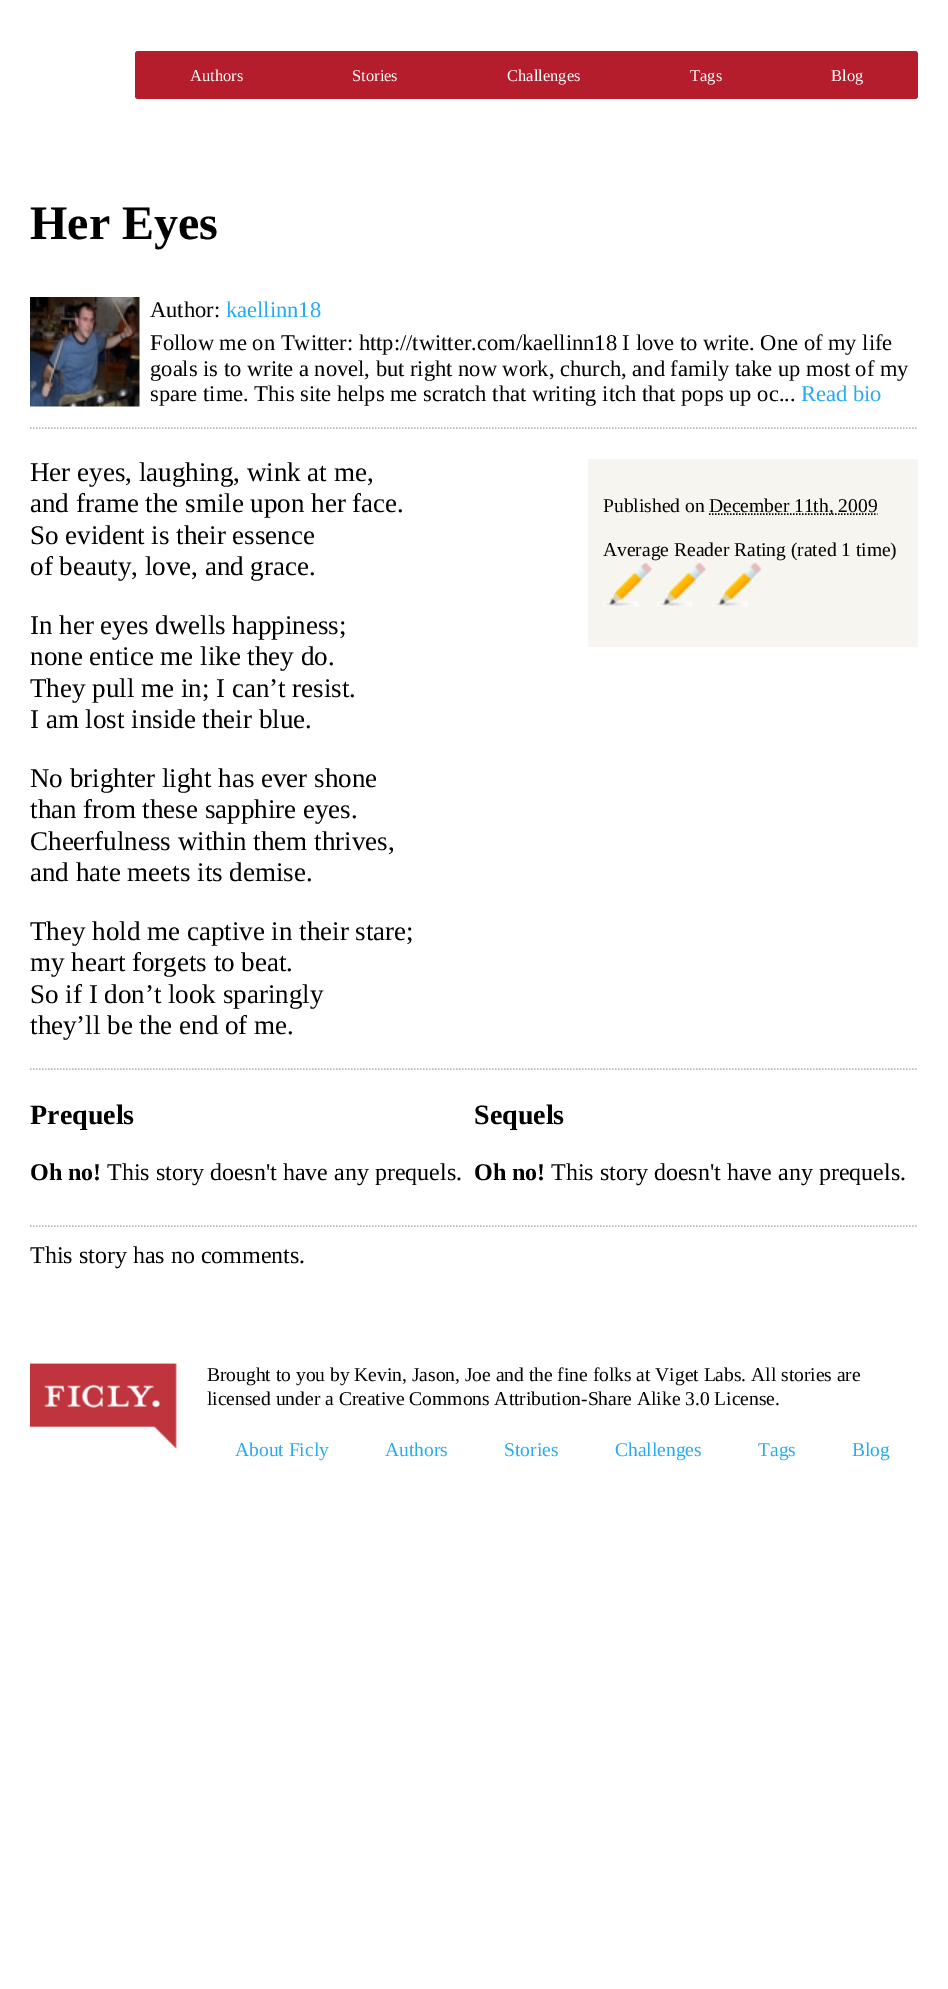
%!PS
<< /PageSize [948 1989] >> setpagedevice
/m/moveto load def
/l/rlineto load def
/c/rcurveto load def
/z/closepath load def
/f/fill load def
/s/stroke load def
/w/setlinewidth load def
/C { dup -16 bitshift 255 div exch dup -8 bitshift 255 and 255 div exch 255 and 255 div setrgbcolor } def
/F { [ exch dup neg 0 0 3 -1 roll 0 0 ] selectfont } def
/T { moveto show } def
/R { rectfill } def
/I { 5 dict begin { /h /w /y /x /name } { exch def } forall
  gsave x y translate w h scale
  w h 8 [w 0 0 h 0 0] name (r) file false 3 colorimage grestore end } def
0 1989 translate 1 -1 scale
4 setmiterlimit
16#FFFFFF C
0 0 948 1989 R
16#B51C2C C
138 51 m 159 0 l 0 48 l -159 0 l -1.5 0 -3 -1.5 -3 -3 c 0 -42 l 0 -1.5 1.5 -3 3 -3 c z f
/LiberationSerif-Regular 16.5 F
16#FFFFFF C
(Authors) 190 81 T
16#B51C2C C
297 51 480 48 R
16#FFFFFF C
(Stories) 352 81 T
(Challenges) 507 81 T
(Tags) 690 81 T
16#B51C2C C
777 51 m 138 0 l 1.5 0 3 1.5 3 3 c 0 42 l 0 1.5 -1.5 3 -3 3 c -138 0 l z f
16#FFFFFF C
(Blog) 831 81 T
/LiberationSerif-Bold 48 F
16#000000 C
(Her Eyes) 30 239 T
16#B8B8B8 C
1.5 w
[1.5 1.5] 0 setdash
30 428 m 888 0 l s
(1.rgb) 30 297 110 110 I
/LiberationSerif-Regular 22.5 F
16#000000 C
(Author:) 150 317 T
16#25ABF1 C
(kaellinn18) 226 317 T
16#000000 C
(Follow me on Twitter: http://twitter.com/kaellinn18 I love to write. One of my life) 150 350 T
(goals is to write a novel, but right now work, church, and family take up most of my) 150 376 T
(spare time. This site helps me scratch that writing itch that pops up oc...) 150 401 T
16#25ABF1 C
(Read bio) 801 401 T
16#B8B8B8 C
30 1069 m 888 0 l s
/LiberationSerif-Regular 27 F
16#000000 C
(Her eyes, laughing, wink at me,) 30 481 T
(and frame the smile upon her face.) 30 512 T
(So evident is their essence) 30 544 T
(of beauty, love, and grace.) 30 575 T
(In her eyes dwells happiness;) 30 634 T
(none entice me like they do.) 30 665 T
(They pull me in; I can’t resist.) 30 697 T
(I am lost inside their blue.) 30 728 T
(No brighter light has ever shone) 30 787 T
(than from these sapphire eyes.) 30 818 T
(Cheerfulness within them thrives,) 30 850 T
(and hate meets its demise.) 30 881 T
(They hold me captive in their stare;) 30 940 T
(my heart forgets to beat.) 30 971 T
(So if I don’t look sparingly) 30 1003 T
(they’ll be the end of me.) 30 1034 T
16#F6F5F0 C
588 459 330 188 R
/LiberationSerif-Regular 19.5 F
16#000000 C
(Published on) 603 512 T
709 514 m 168.5 0 l s
(December 11th, 2009) 709 512 T
(Average Reader Rating \(rated 1 time\)) 603 556 T
(2.rgb) 603 561 50 45 I
(3.rgb) 657 561 50 45 I
(4.rgb) 712 561 50 45 I
16#B8B8B8 C
30 1226 m 888 0 l s
/LiberationSerif-Bold 28 F
16#000000 C
(Prequels) 30 1124 T
/LiberationSerif-Bold 24 F
(Oh no!) 30 1180 T
/LiberationSerif-Regular 24 F
(This story doesn't have any prequels.) 107 1180 T
/LiberationSerif-Bold 28 F
(Sequels) 474 1124 T
/LiberationSerif-Bold 24 F
(Oh no!) 474 1180 T
/LiberationSerif-Regular 24 F
(This story doesn't have any prequels.) 551 1180 T
(This story has no comments.) 30 1263 T
(5.rgb) 30 1363 147 86 I
/LiberationSerif-Regular 19.5 F
(Brought to you by Kevin, Jason, Joe and the fine folks at Viget Labs. All stories are) 207 1381 T
(licensed under a Creative Commons Attribution-Share Alike 3.0 License.) 207 1405 T
16#25ABF1 C
(About Ficly) 235 1456 T
(Authors) 385 1456 T
(Stories) 504 1456 T
(Challenges) 615 1456 T
(Tags) 758 1456 T
(Blog) 852 1456 T
showpage
